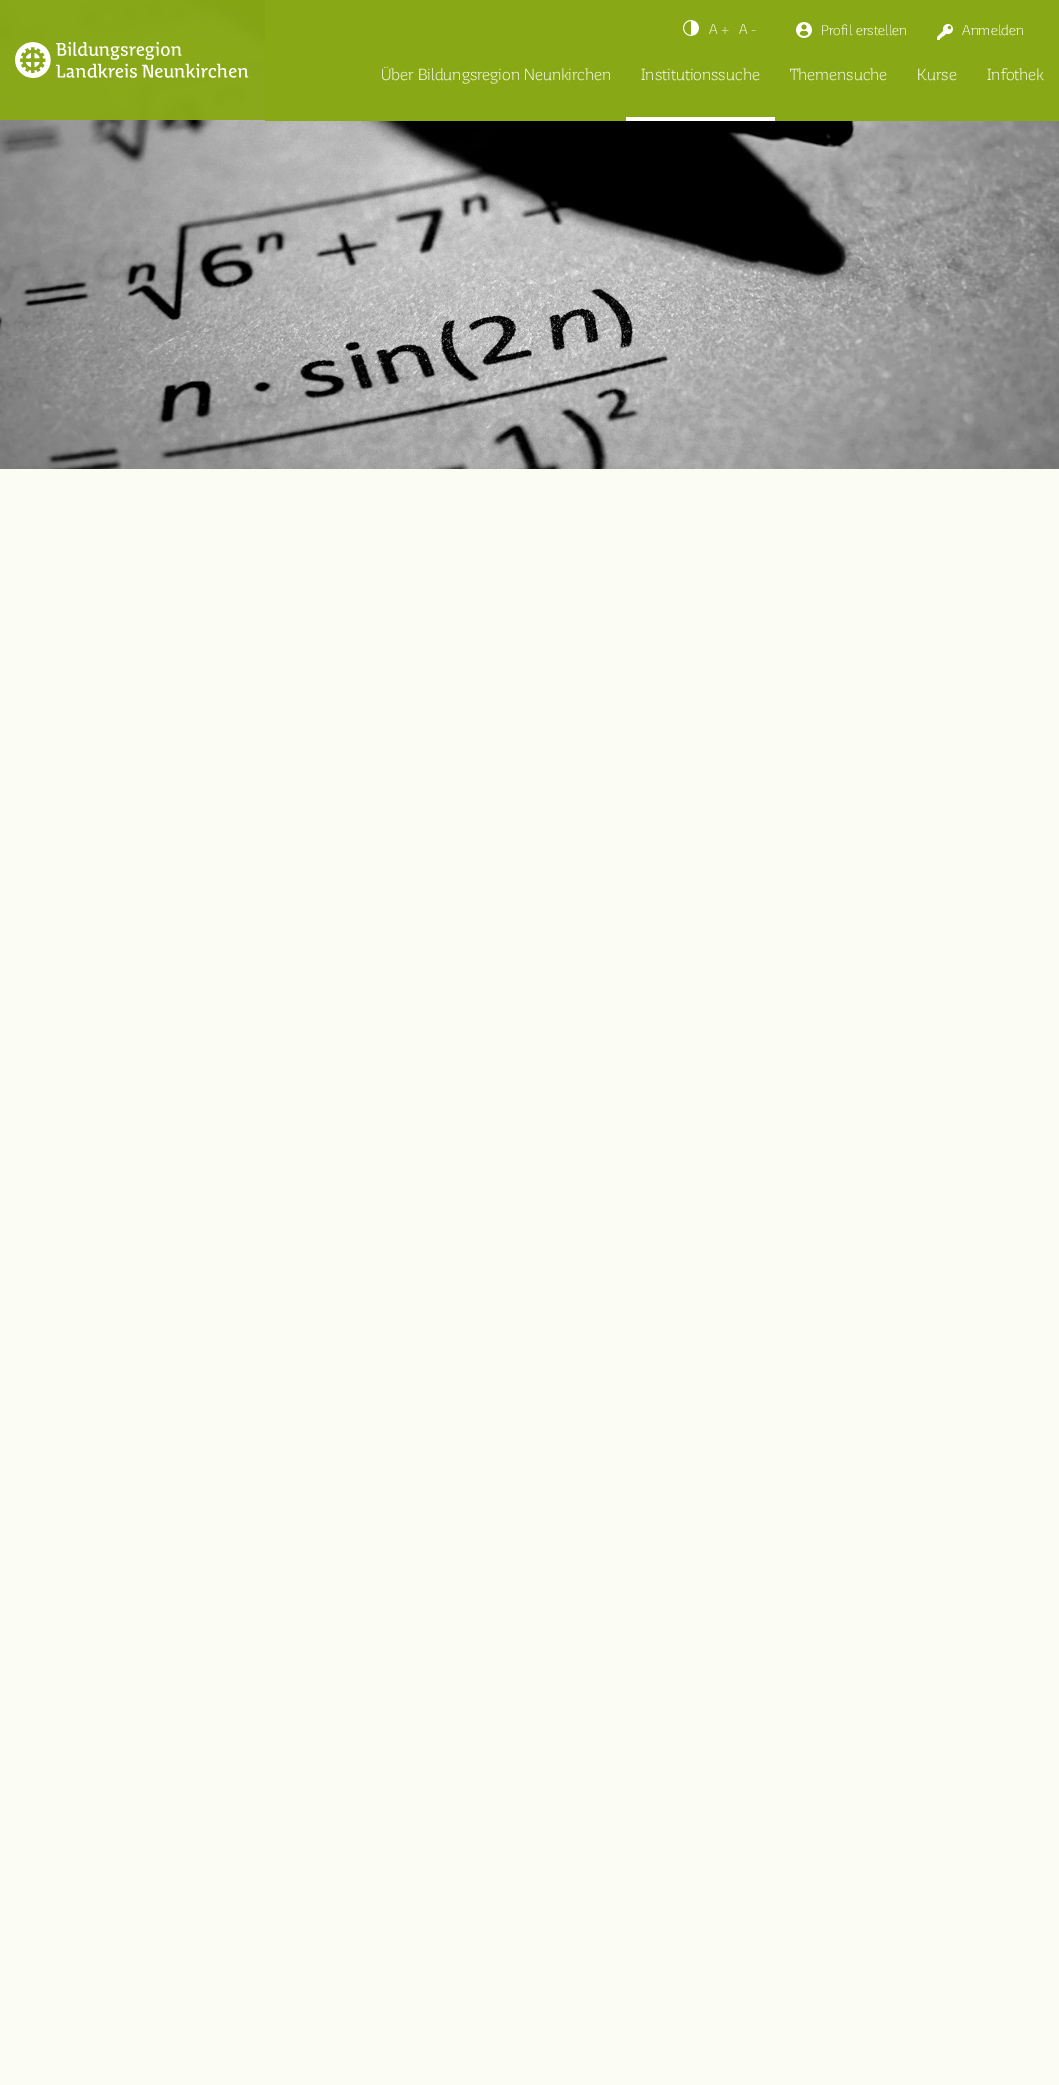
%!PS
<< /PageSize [1059 2085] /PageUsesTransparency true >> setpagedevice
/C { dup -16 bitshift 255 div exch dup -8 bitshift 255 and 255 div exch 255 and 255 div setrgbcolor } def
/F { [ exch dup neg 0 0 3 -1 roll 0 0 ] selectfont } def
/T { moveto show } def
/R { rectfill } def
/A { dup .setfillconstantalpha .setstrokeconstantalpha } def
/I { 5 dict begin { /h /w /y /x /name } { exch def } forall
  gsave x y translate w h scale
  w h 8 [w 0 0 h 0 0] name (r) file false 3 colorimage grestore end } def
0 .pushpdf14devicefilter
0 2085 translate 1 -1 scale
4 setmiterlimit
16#FBFDF4 C
0 0 1059 2085 R
(1.rgb) 0 0 1059 469 I
0.97 A
16#88A915 C
0 0 265 120 R
1 A
(2.rgb) 15 42 234 36 I
265 0 794 121 R
(3.rgb) 683 20 16 16 I
/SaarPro-Light 14 F
16#FFFFFF C
(A +) 709 34 T
(A -) 739 34 T
(4.rgb) 796 22 16 16 I
(Profil erstellen) 821 35 T
(5.rgb) 937 24 16 16 I
(Anmelden) 962 35 T
/SaarPro-Light 16 F
(Über Bildungsregion Neunkirchen) 381 80 T
(Institutionssuche) 641 80 T
626 117 149 4 R
(Themensuche) 790 80 T
(Kurse) 917 80 T
(Infothek) 987 80 T
.poppdf14devicefilter showpage
